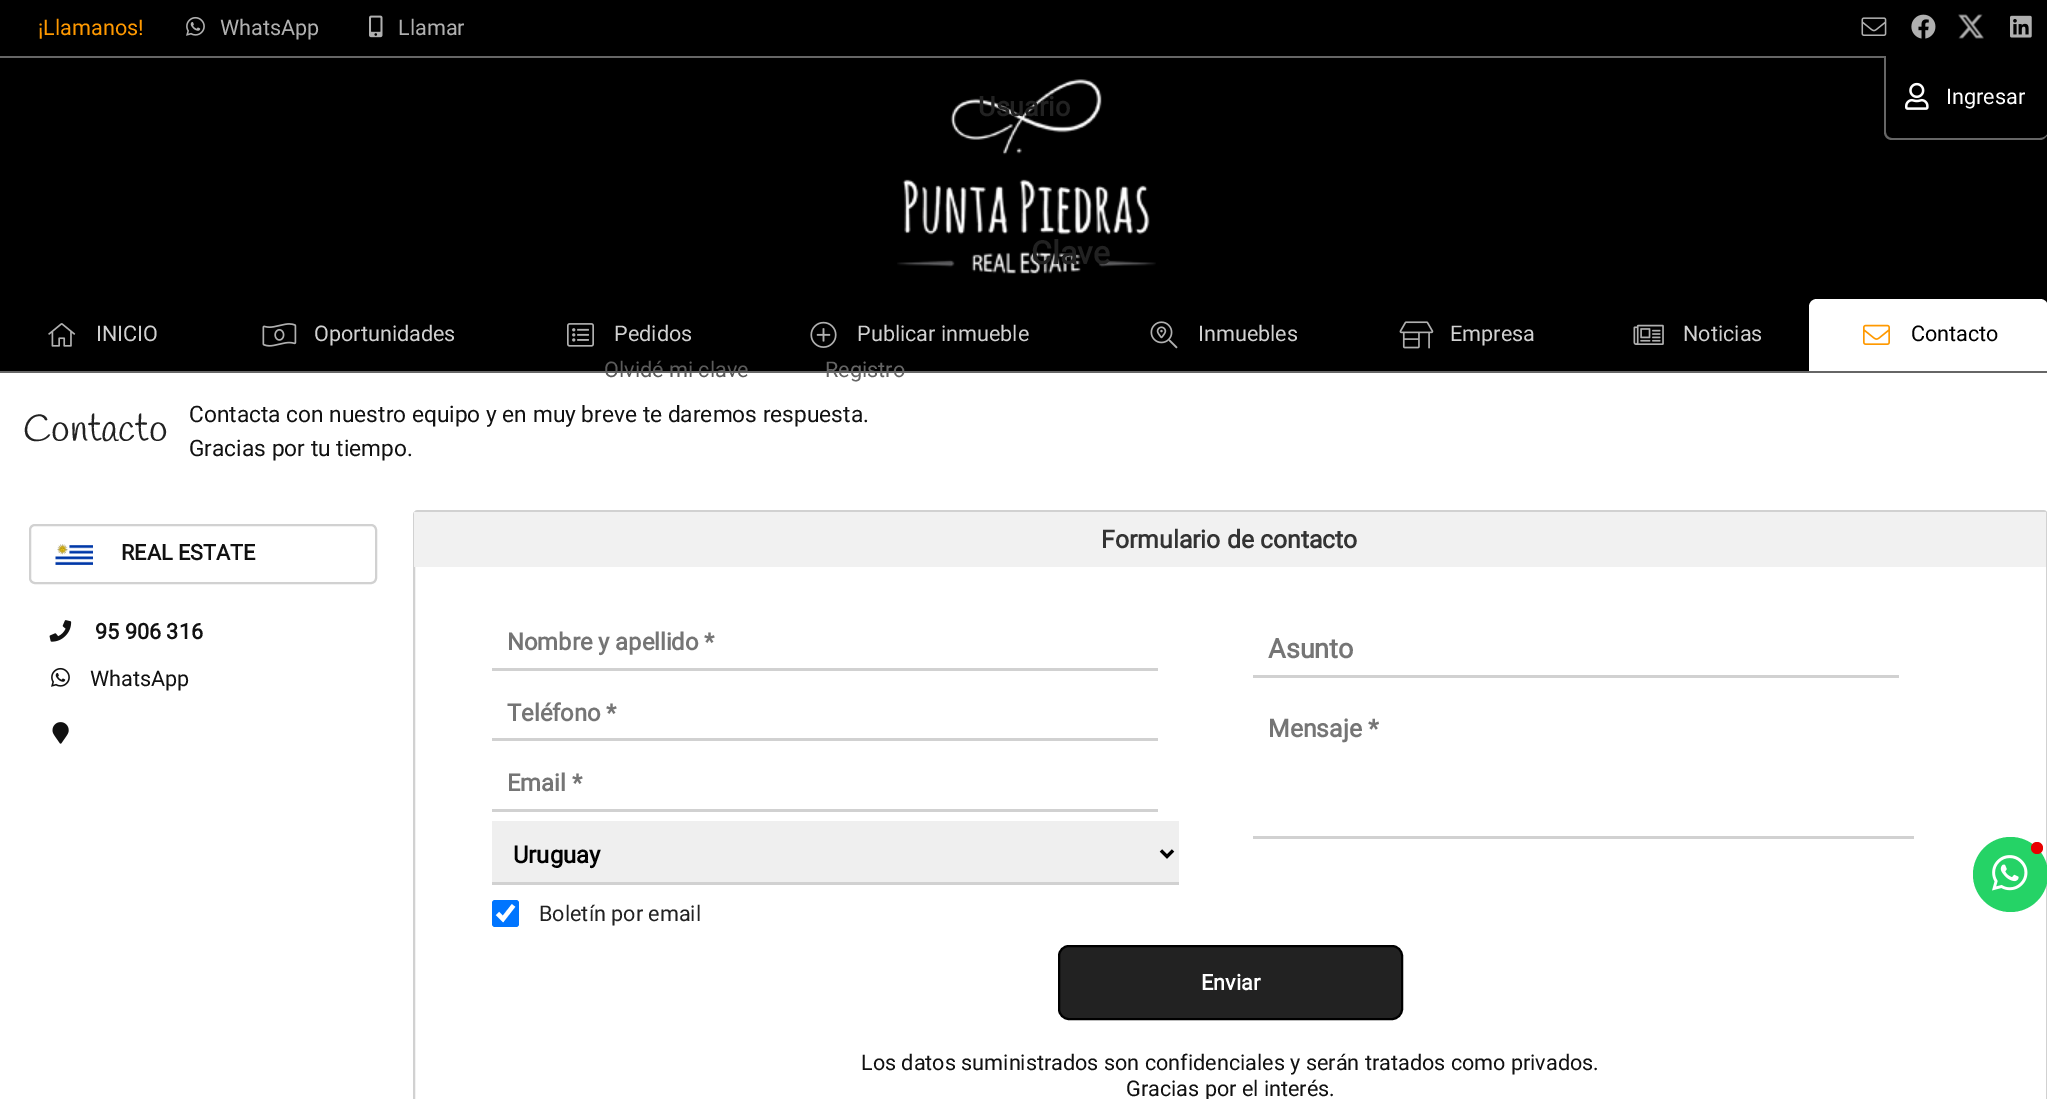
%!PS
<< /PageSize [2047 1099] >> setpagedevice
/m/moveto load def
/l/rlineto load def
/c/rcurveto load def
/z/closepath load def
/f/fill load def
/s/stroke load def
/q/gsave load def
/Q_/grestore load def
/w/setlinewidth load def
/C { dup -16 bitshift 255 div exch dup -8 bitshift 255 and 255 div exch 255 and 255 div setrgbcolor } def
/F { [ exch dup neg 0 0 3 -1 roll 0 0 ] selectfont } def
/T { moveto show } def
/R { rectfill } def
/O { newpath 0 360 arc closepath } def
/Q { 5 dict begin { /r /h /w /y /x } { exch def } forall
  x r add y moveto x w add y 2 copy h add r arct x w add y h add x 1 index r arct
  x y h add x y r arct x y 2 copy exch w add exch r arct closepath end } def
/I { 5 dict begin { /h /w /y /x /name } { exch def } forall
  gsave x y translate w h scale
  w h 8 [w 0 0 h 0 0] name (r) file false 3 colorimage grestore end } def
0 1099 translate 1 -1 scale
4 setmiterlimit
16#FFFFFF C
0 0 2047 1099 R
16#000000 C
0 0 2047 371 R
16#666666 C
0 371 2047 2 R
/Roboto-Regular 21.6 F
16#FF9900 C
(¡Llamanos!) 38 35 T
(1.rgb) 186 16 19 20 I
16#B0B0B0 C
(WhatsApp) 220 35 T
(2.rgb) 369 15 14 23 I
(Llamar) 398 35 T
(3.rgb) 1861 17 26 19 I
(4.rgb) 1911 14 25 25 I
(5.rgb) 1958 14 26 25 I
(6.rgb) 2010 15 22 23 I
16#666666 C
0 56 1884 2 R
(7.rgb) 897 79 259 195 I
1884 56 m 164 0 l 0 76 l 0 4 -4 8 -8 8 c -148 0 l -5 0 -8 -4 -8 -8 c z 1886 56 m 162 0 l 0 76 l 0 3 -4 6 -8 6 c -148 0 l -4 0 -6 -3 -6 -6 c z eofill
(8.rgb) 1905 82 24 28 I
16#FFFFFF C
(Ingresar) 1946 104 T
/Roboto-Bold 27 F
16#222222 C
(Usuario) 978 116 T
/Roboto-Bold 32 F
(Clave) 1031 264 T
/Roboto-Regular 21.6 F
16#5B5B5B C
(Olvidé mi clave) 604 377 T
16#646464 C
(Registro) 825 377 T
(9.rgb) 48 323 28 24 I
16#D1D1D1 C
(INICIO) 96 341 T
(10.rgb) 262 323 35 24 I
(Oportunidades) 314 341 T
(11.rgb) 567 323 27 24 I
(Pedidos) 614 341 T
(12.rgb) 810 321 27 27 I
(Publicar inmueble) 857 341 T
(13.rgb) 1150 321 28 28 I
(Inmuebles) 1198 341 T
(14.rgb) 1399 321 35 28 I
(Empresa) 1450 341 T
(15.rgb) 1633 324 31 21 I
(Noticias) 1683 341 T
16#FFFFFF C
1817 299 m 223 0 l 4.5 0 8 3.5 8 8 c 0 64 l -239 0 l 0 -64 l 0 -4.5 3.5 -8 8 -8 c z f
(16.rgb) 1863 324 27 21 I
16#000000 C
(Contacto) 1911 341 T
/Handlee-Regular 38 F
16#222222 C
(Contacto) 23 441 T
/Roboto-Regular 22.7 F
16#111111 C
(Contacta con nuestro equipo y en muy breve te daremos respuesta.) 189 422 T
(Gracias por tu tiempo.) 189 456 T
16#D1D1D1 C
2 w
414 511 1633 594 4 Q s
16#25D366 C
2010.5 874.5 37.5 O f
16#E80000 C
2037 848 6 O f
(17.rgb) 1992 855 36 36 I
(18.rgb) 55 544 38 21 I
16#D1D1D1 C
30 525 346 58 5 Q s
/Roboto-Bold 21.6 F
16#111111 C
(REAL ESTATE) 121 560 T
(19.rgb) 49 620 23 22 I
(95 906 316) 95 639 T
(20.rgb) 51 667 19 20 I
/Roboto-Regular 21.6 F
(WhatsApp) 90 686 T
(21.rgb) 52 722 17 22 I
16#F1F1F1 C
414 512 1632 55 R
/Roboto-Bold 24.75 F
16#333333 C
(Formulario de contacto) 1101 548 T
16#D1D1D1 C
492 668 666 3 R
/Roboto-Bold 23.75 F
16#757575 C
(Nombre y apellido *) 507 650 T
16#D1D1D1 C
492 738 666 3 R
16#757575 C
(Teléfono *) 507 721 T
16#D1D1D1 C
492 809 666 3 R
16#757575 C
(Email *) 507 791 T
16#EFEFEF C
492 821 687 61 R
16#D1D1D1 C
492 882 687 3 R
16#000000 C
3 w
1161 850.5 m 6 6 l 6 -6 l s
(Uruguay) 513 863 T
16#0075FF C
492 900 27 27 3 Q f
16#FFFFFF C
4.3 w
497.5 913.5 m 5.5 5.5 l 10.5 -13.5 l s
/Roboto-Regular 21.6 F
16#222222 C
(Boletín por email) 539 921 T
16#D1D1D1 C
1253 675 646 3 R
/Roboto-Bold 27 F
16#757575 C
(Asunto) 1268 658 T
16#D1D1D1 C
1253 836 661 3 R
/Roboto-Bold 24.75 F
16#757575 C
(Mensaje *) 1268 737 T
16#222222 C
1059 946 343 73 10 Q q f Q_
16#000000 C
2 w
s
/Roboto-Bold 21.6 F
16#FFFFFF C
(Enviar) 1201 990 T
/Roboto-Regular 21.6 F
16#111111 C
(Los datos suministrados son confidenciales y serán tratados como privados.) 861 1070 T
(Gracias por el interés.) 1126 1096 T
showpage
